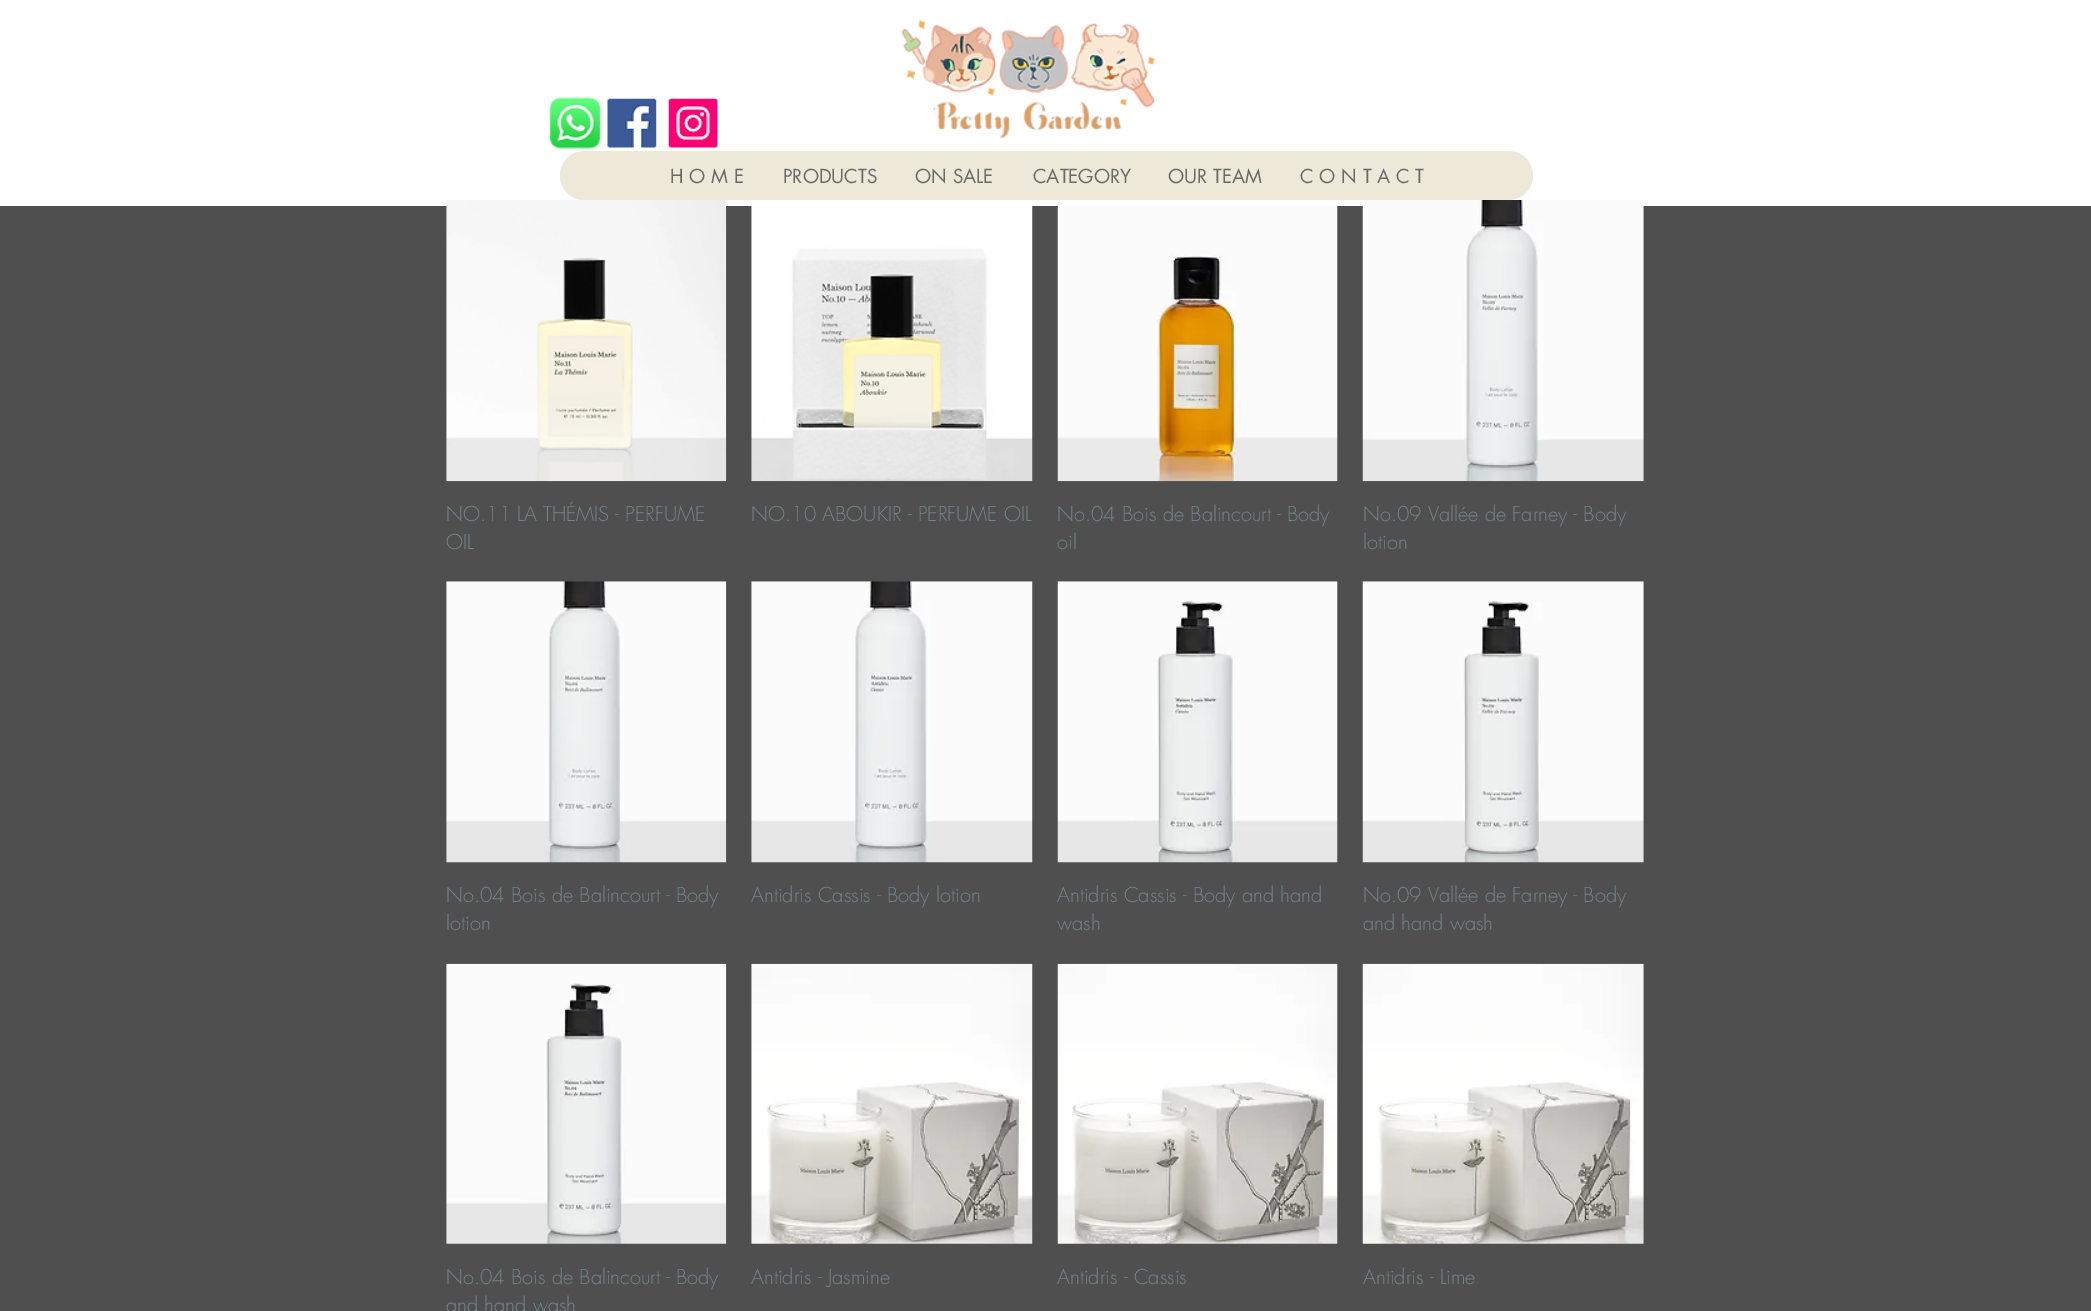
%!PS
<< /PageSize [2091 1311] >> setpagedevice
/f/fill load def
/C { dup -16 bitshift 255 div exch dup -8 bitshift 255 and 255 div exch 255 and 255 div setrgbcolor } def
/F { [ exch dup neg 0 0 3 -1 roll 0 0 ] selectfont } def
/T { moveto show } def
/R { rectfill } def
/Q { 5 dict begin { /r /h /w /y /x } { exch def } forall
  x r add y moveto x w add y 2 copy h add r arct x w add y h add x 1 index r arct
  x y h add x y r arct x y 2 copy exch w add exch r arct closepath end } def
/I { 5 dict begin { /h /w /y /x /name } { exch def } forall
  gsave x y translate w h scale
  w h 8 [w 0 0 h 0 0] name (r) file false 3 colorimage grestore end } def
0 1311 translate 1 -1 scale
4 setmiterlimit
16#4F4F4F C
0 0 2091 1311 R
16#FFFFFF C
0 0 2091 206 R
(1.rgb) 549 97 53 52 I
(2.rgb) 607 98 50 50 I
(3.rgb) 668 98 50 50 I
(4.rgb) 901 20 255 119 I
16#EEE8D8 C
560 151 973 49 24.5 Q f
/futura-Regular 18.75 F
16#696969 C
(H O M E) 670 183 T
(PRODUCTS) 783 183 T
(ON SALE) 915 183 T
(CATEGORY) 1033 183 T
(OUR TEAM) 1168 183 T
(C O N T A C T) 1300 183 T
(5.rgb) 446 200 281 282 I
/futura-Light 20 F
16#72858C C
(NO.11 LA THÉMIS - PERFUME) 446 521 T
(OIL) 446 549 T
(6.rgb) 751 206 282 276 I
(NO.10 ABOUKIR - PERFUME OIL) 751 521 T
(7.rgb) 1057 206 281 276 I
(No.04 Bois de Balincourt - Body) 1057 521 T
(oil) 1057 549 T
(8.rgb) 1362 200 282 282 I
(No.09 Vallée de Farney - Body) 1363 521 T
(lotion) 1363 549 T
(9.rgb) 446 581 281 282 I
(No.04 Bois de Balincourt - Body) 446 902 T
(lotion) 446 930 T
(10.rgb) 751 581 282 282 I
(Antidris Cassis - Body lotion) 751 902 T
(11.rgb) 1057 581 281 282 I
(Antidris Cassis - Body and hand) 1057 902 T
(wash) 1057 930 T
(12.rgb) 1362 581 282 282 I
(No.09 Vallée de Farney - Body) 1363 902 T
(and hand wash) 1363 930 T
(13.rgb) 446 963 281 281 I
(No.04 Bois de Balincourt - Body) 446 1284 T
(and hand wash) 446 1312 T
(14.rgb) 751 963 282 281 I
(Antidris - Jasmine) 751 1284 T
(15.rgb) 1057 963 281 281 I
(Antidris - Cassis) 1057 1284 T
(16.rgb) 1362 963 282 281 I
(Antidris - Lime) 1363 1284 T
showpage
